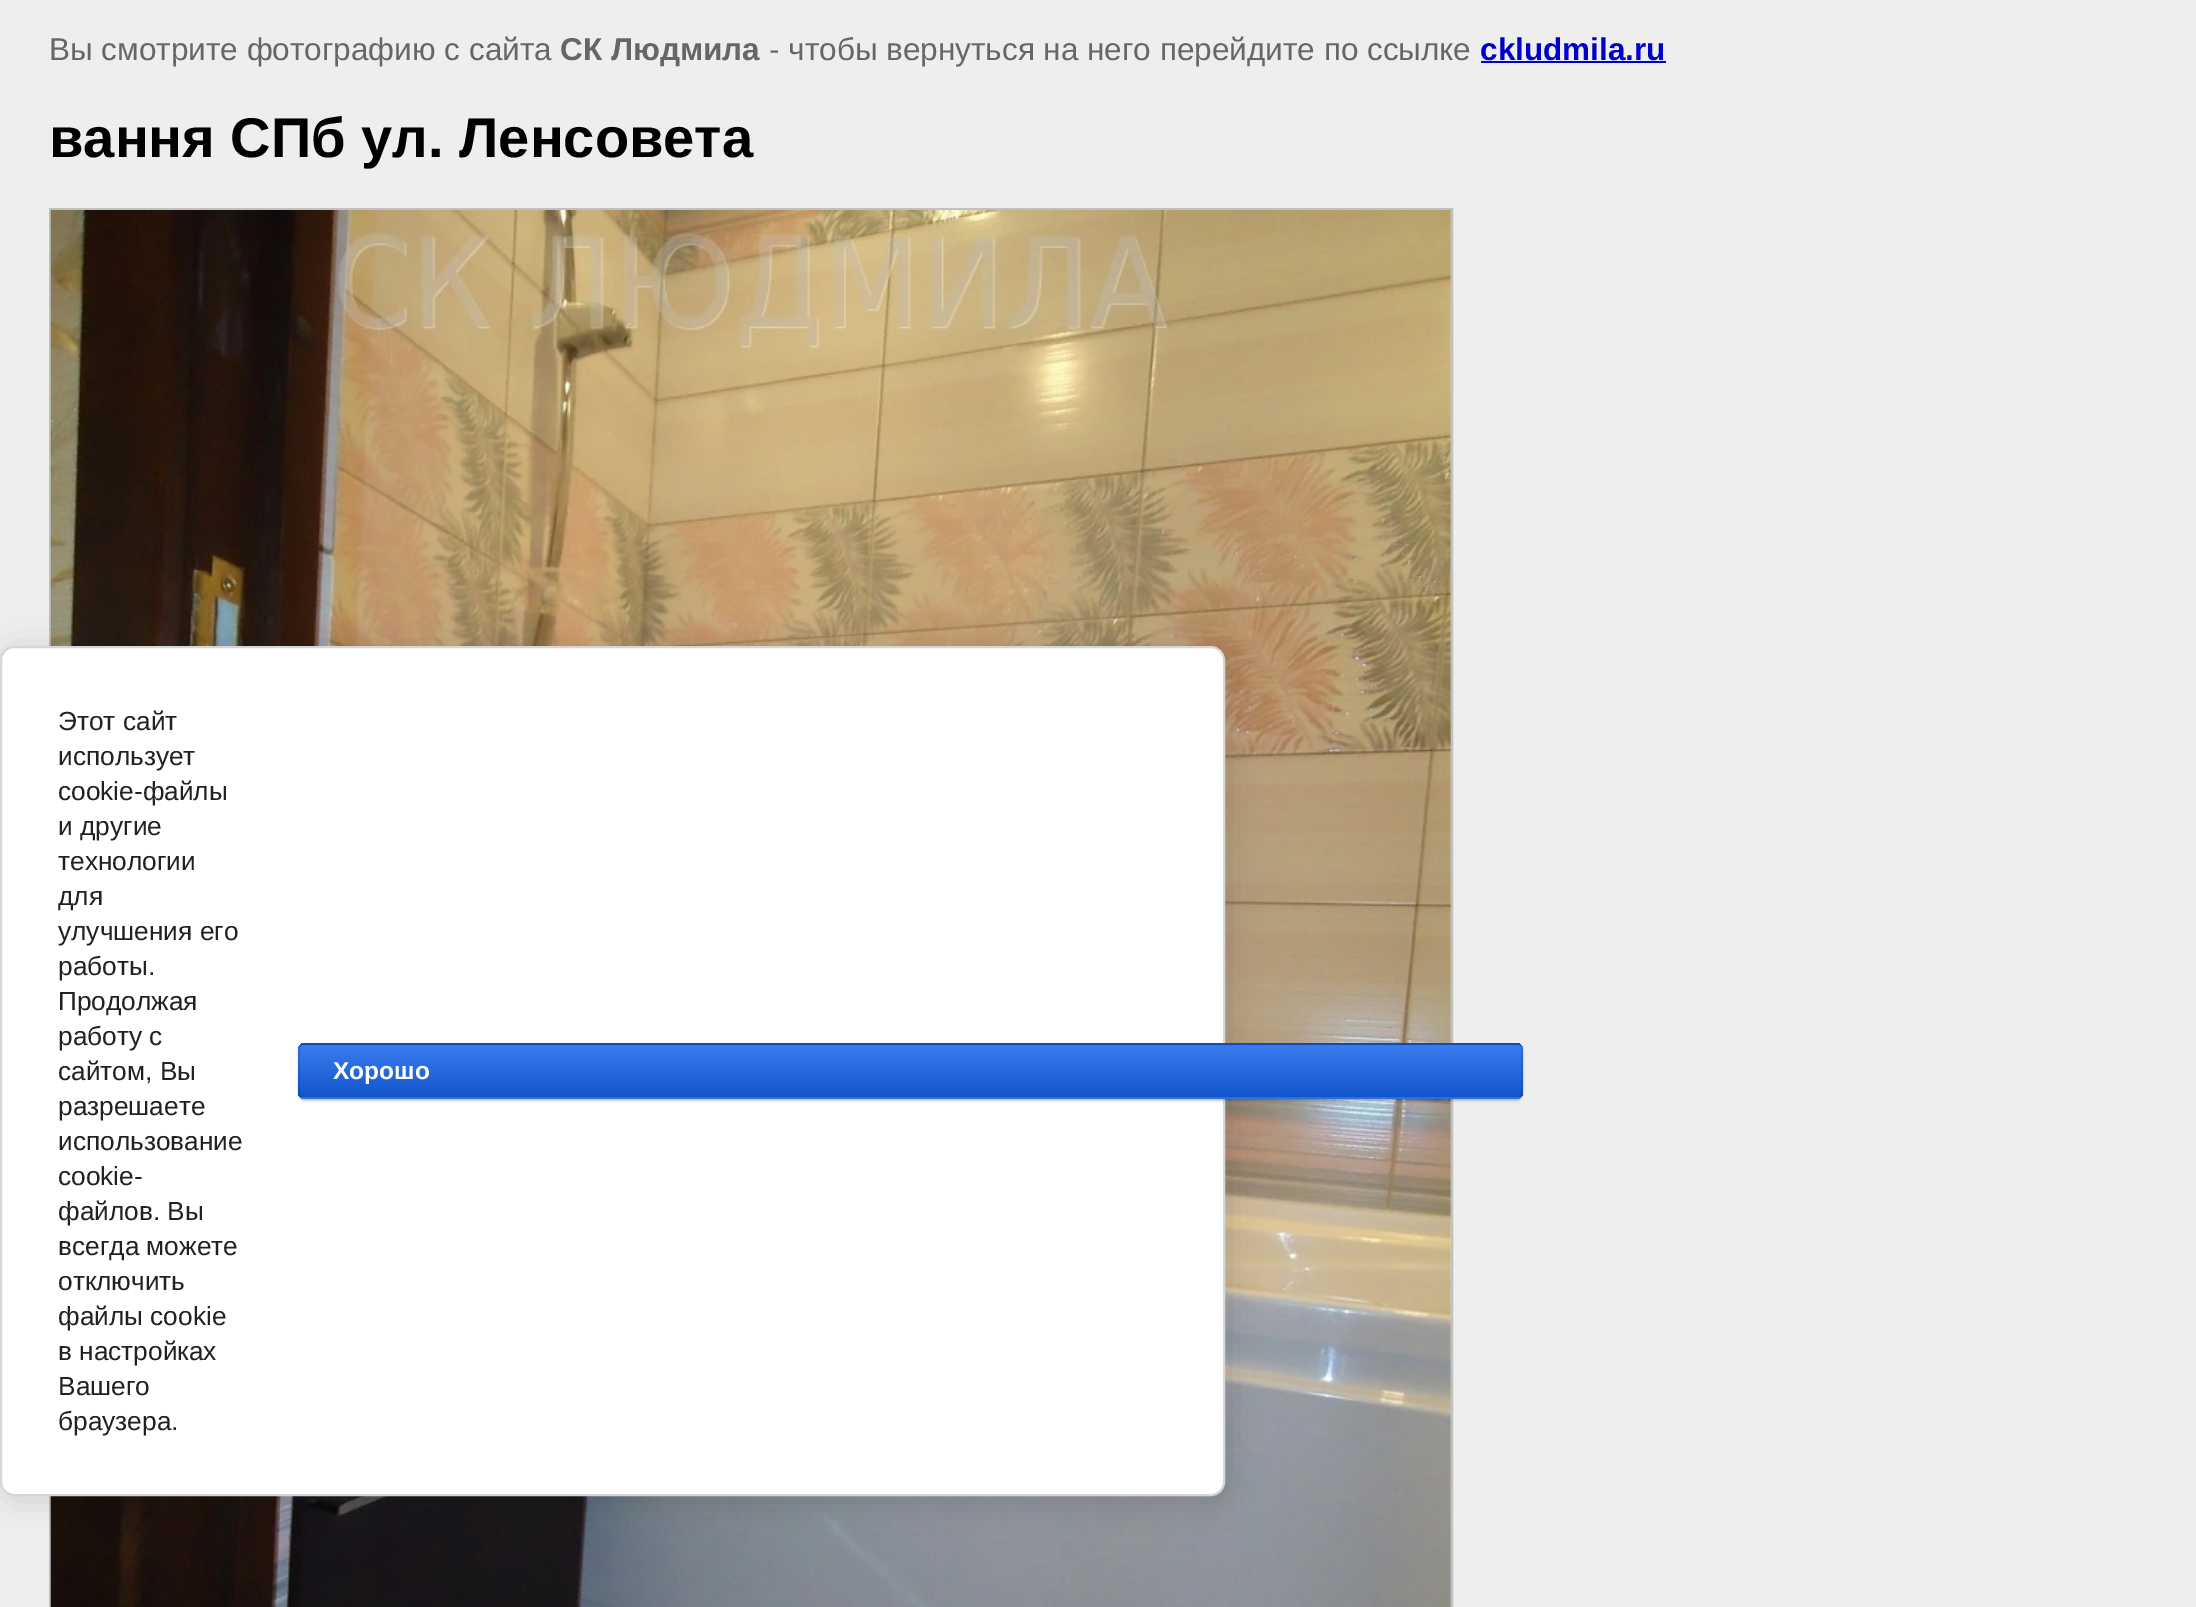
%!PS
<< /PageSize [2196 1607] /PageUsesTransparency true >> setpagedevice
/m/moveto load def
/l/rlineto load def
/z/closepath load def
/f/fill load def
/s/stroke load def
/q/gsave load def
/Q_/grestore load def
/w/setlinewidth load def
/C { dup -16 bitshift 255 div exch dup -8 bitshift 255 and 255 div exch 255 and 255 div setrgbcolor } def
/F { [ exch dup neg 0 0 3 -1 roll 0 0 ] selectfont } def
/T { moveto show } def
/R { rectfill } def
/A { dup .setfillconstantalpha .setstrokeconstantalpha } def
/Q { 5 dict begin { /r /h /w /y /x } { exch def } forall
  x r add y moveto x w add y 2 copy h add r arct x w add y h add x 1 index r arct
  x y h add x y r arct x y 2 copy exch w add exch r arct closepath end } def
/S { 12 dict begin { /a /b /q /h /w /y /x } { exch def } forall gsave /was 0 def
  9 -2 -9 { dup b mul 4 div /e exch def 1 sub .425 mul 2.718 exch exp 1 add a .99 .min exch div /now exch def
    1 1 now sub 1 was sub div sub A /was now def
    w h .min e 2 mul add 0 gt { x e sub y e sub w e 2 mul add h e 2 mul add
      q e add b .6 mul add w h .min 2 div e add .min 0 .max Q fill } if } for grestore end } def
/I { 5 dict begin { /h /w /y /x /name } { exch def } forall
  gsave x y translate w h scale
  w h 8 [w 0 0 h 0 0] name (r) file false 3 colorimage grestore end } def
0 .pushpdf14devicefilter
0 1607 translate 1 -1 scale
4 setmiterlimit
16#EEEEEE C
0 0 2196 1607 R
/LiberationSans-Regular 31.5 F
16#666666 C
(Вы смотрите фотографию с сайта) 49 60 T
/LiberationSans-Bold 31.5 F
(СК Людмила) 560 60 T
/LiberationSans-Regular 31.5 F
(- чтобы вернуться на него перейдите по ссылке) 769 60 T
/LiberationSans-Bold 31.5 F
16#0000CC C
(ckludmila.ru) 1480 60 T
1481 61 185 2 R
/LiberationSans-Bold 56 F
16#000000 C
(вання СПб ул. Ленсовета) 49 157 T
16#C0C0C0 C
2 w
50 209 1402 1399 rectstroke
(1.rgb) 50 210 1401 1397 I
16#000000 C
4 649 1225 851 14 16 .14 S
16#FFFFFF C
1 647 1223 848 13 Q q f Q_
16#D6D6D6 C
s
/LiberationSans-Regular 26.25 F
16#212121 C
(Этот сайт) 58 730 T
(использует) 58 765 T
(cookie-файлы) 58 800 T
(и другие) 58 835 T
(технологии) 58 870 T
(для) 58 905 T
(улучшения его) 58 940 T
(работы.) 58 975 T
(Продолжая) 58 1010 T
(работу с) 58 1045 T
(сайтом, Вы) 58 1080 T
(разрешаете) 58 1115 T
(использование) 58 1150 T
(cookie-) 58 1185 T
(файлов. Вы) 58 1220 T
(всегда можете) 58 1255 T
(отключить) 58 1290 T
(файлы cookie) 58 1325 T
(в настройках) 58 1360 T
(Вашего) 58 1395 T
(браузера.) 58 1430 T
16#000000 C
298 1045 1225 56 7 1 .2 S
q
298 1043 1225 56 7 Q clip newpath
q 298 1043 m 1225 0 l 0 2 l -1225 0 l z clip newpath
<< /ShadingType 2 /ColorSpace /DeviceRGB /Coords [910 992 910 1045] /Extend [true true] /Function << /FunctionType 2 /Domain [0 1] /C0 [.231 .486 .937] /C1 [.067 .333 .8] /N 1 >> >> shfill Q_
q 298 1045 m 1225 0 l 0 52 l -1225 0 l z clip newpath
<< /ShadingType 2 /ColorSpace /DeviceRGB /Coords [910 1045 910 1097] /Extend [true true] /Function << /FunctionType 2 /Domain [0 1] /C0 [.231 .486 .937] /C1 [.067 .333 .8] /N 1 >> >> shfill Q_
q 298 1097 m 1225 0 l 0 2 l -1225 0 l z clip newpath
<< /ShadingType 2 /ColorSpace /DeviceRGB /Coords [910 1097 910 1150] /Extend [true true] /Function << /FunctionType 2 /Domain [0 1] /C0 [.231 .486 .937] /C1 [.067 .333 .8] /N 1 >> >> shfill Q_
Q_
0.1 A
299 1044 1223 54 6 Q s
/LiberationSans-Bold 24.5 F
1 A
16#FFFFFF C
(Хорошо) 333 1079 T
.poppdf14devicefilter showpage
